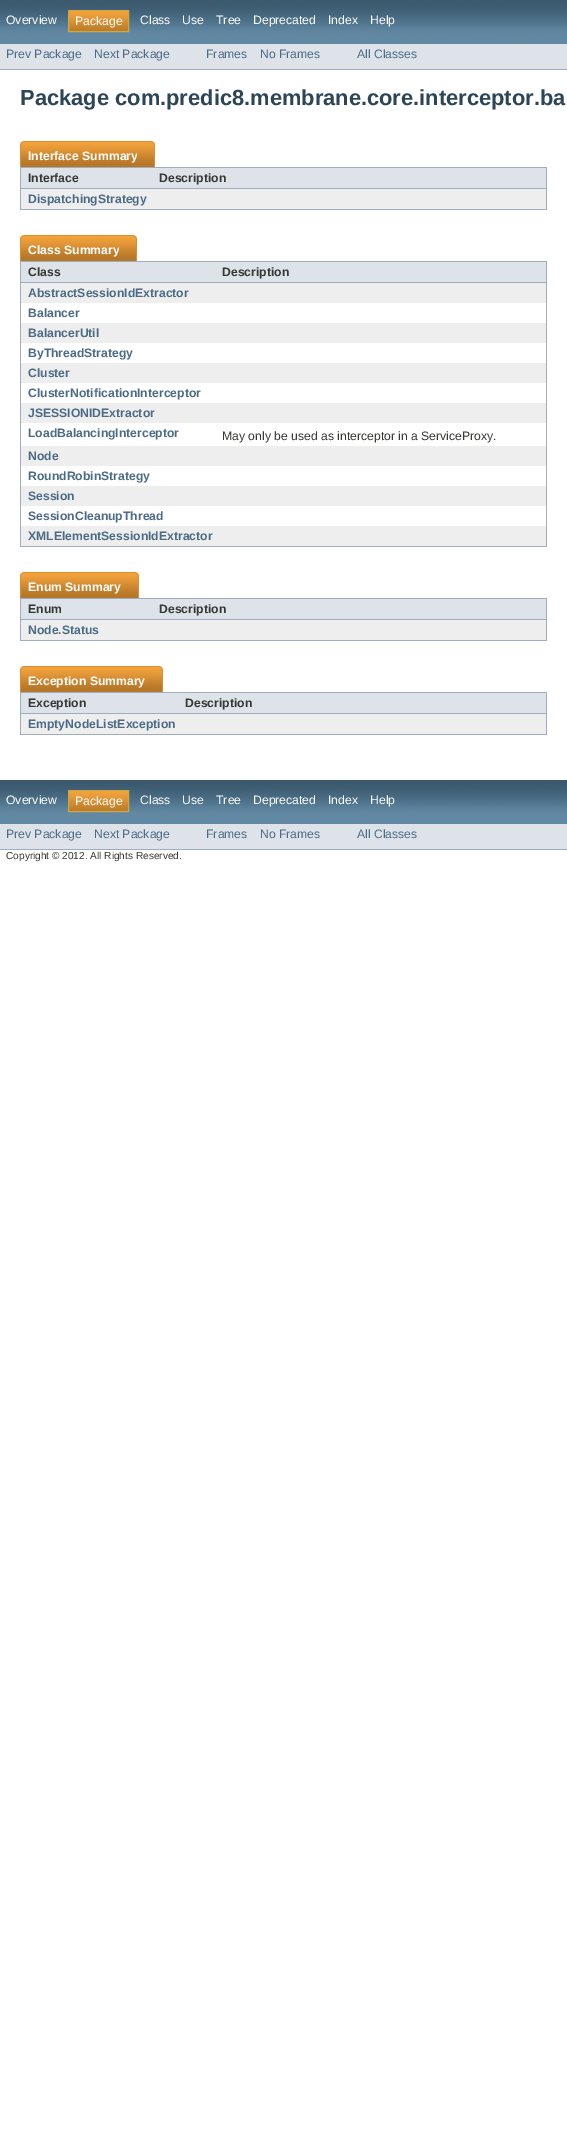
%!PS
<< /PageSize [567 2134] >> setpagedevice
/C { dup -16 bitshift 255 div exch dup -8 bitshift 255 and 255 div exch 255 and 255 div setrgbcolor } def
/F { [ exch dup neg 0 0 3 -1 roll 0 0 ] selectfont } def
/T { moveto show } def
/R { rectfill } def
/I { 5 dict begin { /h /w /y /x /name } { exch def } forall
  gsave x y translate w h scale
  w h 8 [w 0 0 h 0 0] name (r) file false 3 colorimage grestore end } def
0 2134 translate 1 -1 scale
4 setmiterlimit
16#FFFFFF C
0 0 567 2134 R
(1.rgb) 0 0 567 44 I
/LiberationSans-Regular 12.2 F
(Overview) 6 24 T
(2.rgb) 69 11 59 20 I
16#C9AA44 C
68.5 10.5 60 21 rectstroke
16#FFFFFF C
(Package) 75 25 T
(Class) 140 24 T
(Use) 182 24 T
(Tree) 216 24 T
(Deprecated) 253 24 T
(Index) 328 24 T
(Help) 370 24 T
16#DEE3E9 C
0 44 567 25 R
16#9EADC0 C
0 69 567 1 R
16#4C6B87 C
(Prev Package) 6 58 T
(Next Package) 94 58 T
(Frames) 206 58 T
(No Frames) 260 58 T
(All Classes) 357 58 T
/LiberationSans-Bold 21.9 F
16#2C4557 C
(Package com.predic8.membrane.core.interceptor.ba) 20 105 T
16#9EADC0 C
20 209 527 1 R
(3.rgb) 20 141 117 26 I
/LiberationSans-Bold 12.2 F
16#FFFFFF C
(Interface Summary) 28 160 T
(4.rgb) 137 141 18 26 I
16#DEE3E9 C
21 168 525 20 R
16#9EADC0 C
20 167 527 1 R
20 188 132 1 R
20 167 1 42 R
16#353833 C
(Interface) 28 182 T
16#9EADC0 C
546 167 1 42 R
152 188 395 1 R
16#353833 C
(Description) 159 182 T
16#EEEEEF C
21 189 525 20 R
16#4C6B87 C
(DispatchingStrategy) 28 203 T
16#9EADC0 C
20 546 527 1 R
(5.rgb) 20 235 99 26 I
16#FFFFFF C
(Class Summary) 28 254 T
(4.rgb) 119 235 18 26 I
16#DEE3E9 C
21 262 525 20 R
16#9EADC0 C
20 261 527 1 R
20 282 195 1 R
20 261 1 285 R
16#353833 C
(Class) 28 276 T
16#9EADC0 C
546 261 1 285 R
215 282 332 1 R
16#353833 C
(Description) 222 276 T
16#EEEEEF C
21 283 525 20 R
16#4C6B87 C
(AbstractSessionIdExtractor) 28 297 T
(Balancer) 28 317 T
16#EEEEEF C
21 323 525 20 R
16#4C6B87 C
(BalancerUtil) 28 337 T
(ByThreadStrategy) 28 357 T
16#EEEEEF C
21 363 525 20 R
16#4C6B87 C
(Cluster) 28 377 T
(ClusterNotificationInterceptor) 28 397 T
16#EEEEEF C
21 403 525 20 R
16#4C6B87 C
(JSESSIONIDExtractor) 28 417 T
(LoadBalancingInterceptor) 28 437 T
/LiberationSans-Regular 12.2 F
16#353833 C
(May only be used as interceptor in a ServiceProxy.) 222 440 T
16#EEEEEF C
21 446 525 20 R
/LiberationSans-Bold 12.2 F
16#4C6B87 C
(Node) 28 460 T
(RoundRobinStrategy) 28 480 T
16#EEEEEF C
21 486 525 20 R
16#4C6B87 C
(Session) 28 500 T
(SessionCleanupThread) 28 520 T
16#EEEEEF C
21 526 525 20 R
16#4C6B87 C
(XMLElementSessionIdExtractor) 28 540 T
16#9EADC0 C
20 640 527 1 R
(6.rgb) 20 572 101 26 I
16#FFFFFF C
(Enum Summary) 28 591 T
(4.rgb) 121 572 18 26 I
16#DEE3E9 C
21 599 525 20 R
16#9EADC0 C
20 598 527 1 R
20 619 132 1 R
20 598 1 42 R
16#353833 C
(Enum) 28 613 T
16#9EADC0 C
546 598 1 42 R
152 619 395 1 R
16#353833 C
(Description) 159 613 T
16#EEEEEF C
21 620 525 20 R
16#4C6B87 C
(Node.Status) 28 634 T
16#9EADC0 C
20 734 527 1 R
(7.rgb) 20 666 125 26 I
16#FFFFFF C
(Exception Summary) 28 685 T
(4.rgb) 145 666 18 26 I
16#DEE3E9 C
21 693 525 20 R
16#9EADC0 C
20 692 527 1 R
20 713 158 1 R
20 692 1 42 R
16#353833 C
(Exception) 28 707 T
16#9EADC0 C
546 692 1 42 R
178 713 369 1 R
16#353833 C
(Description) 185 707 T
16#EEEEEF C
21 714 525 20 R
16#4C6B87 C
(EmptyNodeListException) 28 728 T
(1.rgb) 0 780 567 44 I
/LiberationSans-Regular 12.2 F
16#FFFFFF C
(Overview) 6 804 T
(2.rgb) 69 791 59 20 I
16#C9AA44 C
68.5 790.5 60 21 rectstroke
16#FFFFFF C
(Package) 75 805 T
(Class) 140 804 T
(Use) 182 804 T
(Tree) 216 804 T
(Deprecated) 253 804 T
(Index) 328 804 T
(Help) 370 804 T
16#DEE3E9 C
0 824 567 25 R
16#9EADC0 C
0 849 567 1 R
16#4C6B87 C
(Prev Package) 6 838 T
(Next Package) 94 838 T
(Frames) 206 838 T
(No Frames) 260 838 T
(All Classes) 357 838 T
/LiberationSans-Regular 10.1 F
16#353833 C
(Copyright © 2012. All Rights Reserved.) 6 859 T
showpage
